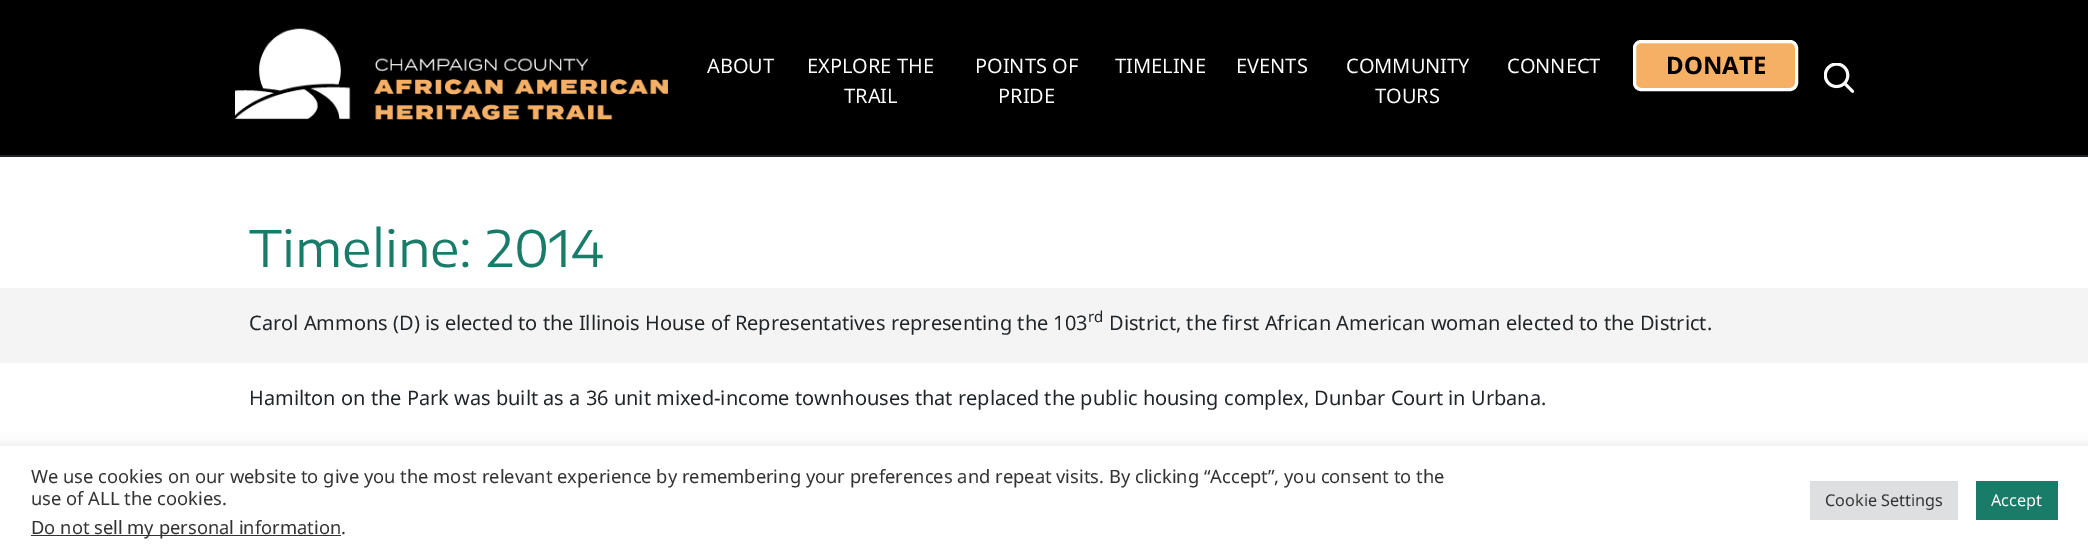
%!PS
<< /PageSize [2088 555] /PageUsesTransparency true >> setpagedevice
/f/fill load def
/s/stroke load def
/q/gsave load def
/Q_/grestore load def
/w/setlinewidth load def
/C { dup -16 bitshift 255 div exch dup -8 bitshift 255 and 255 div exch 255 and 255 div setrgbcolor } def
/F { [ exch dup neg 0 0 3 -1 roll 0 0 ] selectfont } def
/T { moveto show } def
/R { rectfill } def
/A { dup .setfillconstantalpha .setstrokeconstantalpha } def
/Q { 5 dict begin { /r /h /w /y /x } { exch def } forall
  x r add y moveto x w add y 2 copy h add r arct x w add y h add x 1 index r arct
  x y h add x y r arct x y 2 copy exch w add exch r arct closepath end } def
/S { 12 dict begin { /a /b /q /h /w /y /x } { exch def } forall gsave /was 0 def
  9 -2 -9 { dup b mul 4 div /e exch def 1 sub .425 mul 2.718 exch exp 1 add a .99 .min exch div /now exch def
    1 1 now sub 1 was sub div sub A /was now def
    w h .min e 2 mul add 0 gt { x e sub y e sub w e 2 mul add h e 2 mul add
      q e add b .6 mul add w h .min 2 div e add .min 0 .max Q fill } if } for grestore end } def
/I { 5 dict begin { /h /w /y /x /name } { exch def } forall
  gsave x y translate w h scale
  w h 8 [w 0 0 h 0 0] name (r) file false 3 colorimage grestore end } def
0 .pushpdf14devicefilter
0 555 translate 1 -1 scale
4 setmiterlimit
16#FFFFFF C
0 0 2088 555 R
16#000000 C
0 0 2088 155 R
(1.rgb) 235 28 433 92 I
/NotoSans-Regular 20 F
16#FFFFFF C
(ABOUT) 707 73 T
(EXPLORE THE) 807 73 T
(TRAIL) 844 103 T
(POINTS OF) 975 73 T
(PRIDE) 998 103 T
(TIMELINE) 1115 73 T
(EVENTS) 1236 73 T
(COMMUNITY) 1346 73 T
(TOURS) 1375 103 T
(CONNECT) 1507 73 T
16#F5B066 C
1634.5 41.5 162 48 6.5 Q q f Q_
16#FFFFFF C
3 w
s
/NotoSans-Bold 24 F
16#000000 C
(DONATE) 1666 74 T
(2.rgb) 1824 63 30 30 I
16#212529 C
0 155 2088 2 R
/EncodeSansExpanded-Regular 50 F
16#197C69 C
(Timeline: 2014) 249 267 T
16#F3F4F3 C
0 288 2088 75 R
/NotoSans-Regular 20 F
16#212529 C
(Carol Ammons \(D\) is elected to the Illinois House of Representatives representing the 103) 249 330 T
/NotoSans-Regular 15 F
(rd) 1088 322 T
/NotoSans-Regular 20 F
(District, the first African American woman elected to the District.) 1109 330 T
(Hamilton on the Park was built as a 36 unit mixed-income townhouses that replaced the public housing complex, Dunbar Court in Urbana.) 249 405 T
16#ACABAB C
0 445 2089 109 0 6 .3 S
16#FFFFFF C
0 446 2088 109 R
/NotoSans-Regular 18.33 F
16#333333 C
(We use cookies on our website to give you the most relevant experience by remembering your preferences and repeat visits. By clicking “Accept”, you consent to the) 31 483 T
(use of ALL the cookies.) 31 505 T
31 535 310 1 R
(Do not sell my personal information.) 31 534 T
16#DEDFE0 C
1810 481 148 39 R
/NotoSans-Regular 16.25 F
16#333333 C
(Cookie Settings) 1825 506 T
16#197C69 C
1976 481 82 39 R
16#FFFFFF C
(Accept) 1991 506 T
.poppdf14devicefilter showpage
